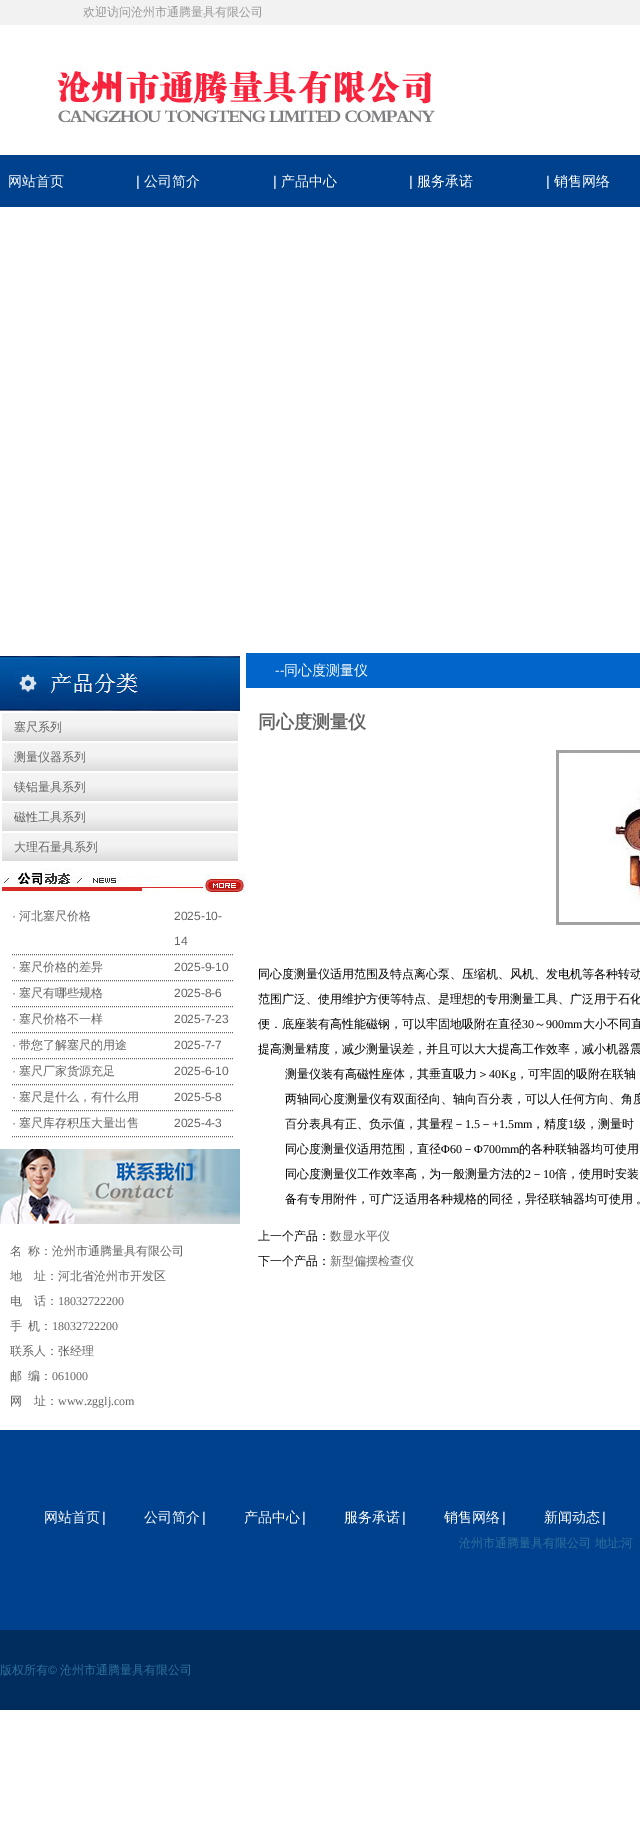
%!PS
<< /PageSize [640 1847] >> setpagedevice
/m/moveto load def
/l/rlineto load def
/s/stroke load def
/C { dup -16 bitshift 255 div exch dup -8 bitshift 255 and 255 div exch 255 and 255 div setrgbcolor } def
/F { [ exch dup neg 0 0 3 -1 roll 0 0 ] selectfont } def
/T { moveto show } def
/R { rectfill } def
/I { 5 dict begin { /h /w /y /x /name } { exch def } forall
  gsave x y translate w h scale
  w h 8 [w 0 0 h 0 0] name (r) file false 3 colorimage grestore end } def
0 1847 translate 1 -1 scale
4 setmiterlimit
16#FFFFFF C
0 0 640 1847 R
16#F2F2F2 C
0 0 640 25 R
/WenQuanYiZenHei-Medium 12 F
16#999999 C
(欢迎访问沧州市通腾量具有限公司) 83 16 T
(1.rgb) 56 65 379 64 I
16#00418D C
0 155 640 52 R
/WenQuanYiZenHei-Medium 14 F
16#FFFFFF C
(网站首页) 8 186 T
/LiberationSans-Regular 14 F
(|) 136 186 T
/WenQuanYiZenHei-Medium 14 F
(公司简介) 144 186 T
/LiberationSans-Regular 14 F
(|) 273 186 T
/WenQuanYiZenHei-Medium 14 F
(产品中心) 281 186 T
/LiberationSans-Regular 14 F
(|) 409 186 T
/WenQuanYiZenHei-Medium 14 F
(服务承诺) 417 186 T
/LiberationSans-Regular 14 F
(|) 546 186 T
/WenQuanYiZenHei-Medium 14 F
(销售网络) 554 186 T
(2.rgb) 0 656 240 55 I
(3.rgb) 2 713 236 28 I
/WenQuanYiZenHei-Medium 12 F
16#646464 C
(塞尺系列) 14 731 T
(3.rgb) 2 743 236 28 I
(测量仪器系列) 14 761 T
(3.rgb) 2 773 236 28 I
(镁铝量具系列) 14 791 T
(3.rgb) 2 803 236 28 I
(磁性工具系列) 14 821 T
(3.rgb) 2 833 236 28 I
(大理石量具系列) 14 851 T
(4.rgb) 0 868 246 27 I
16#666666 C
[1 1] 0 setdash
12 954.5 m 222 0 l s
/LiberationSans-Regular 12 F
16#646464 C
(·) 12 920 T
/WenQuanYiZenHei-Medium 12 F
(河北塞尺价格) 19 920 T
/LiberationSans-Regular 12 F
(2025-10-) 174 920 T
(14) 174 945 T
16#666666 C
12 980.5 m 222 0 l s
16#646464 C
(·) 12 971 T
/WenQuanYiZenHei-Medium 12 F
(塞尺价格的差异) 19 971 T
/LiberationSans-Regular 12 F
(2025-9-10) 174 971 T
16#666666 C
12 1006.5 m 222 0 l s
16#646464 C
(·) 12 997 T
/WenQuanYiZenHei-Medium 12 F
(塞尺有哪些规格) 19 997 T
/LiberationSans-Regular 12 F
(2025-8-6) 174 997 T
16#666666 C
12 1032.5 m 222 0 l s
16#646464 C
(·) 12 1023 T
/WenQuanYiZenHei-Medium 12 F
(塞尺价格不一样) 19 1023 T
/LiberationSans-Regular 12 F
(2025-7-23) 174 1023 T
16#666666 C
12 1058.5 m 222 0 l s
16#646464 C
(·) 12 1049 T
/WenQuanYiZenHei-Medium 12 F
(带您了解塞尺的用途) 19 1049 T
/LiberationSans-Regular 12 F
(2025-7-7) 174 1049 T
16#666666 C
12 1084.5 m 222 0 l s
16#646464 C
(·) 12 1075 T
/WenQuanYiZenHei-Medium 12 F
(塞尺厂家货源充足) 19 1075 T
/LiberationSans-Regular 12 F
(2025-6-10) 174 1075 T
16#666666 C
12 1110.5 m 222 0 l s
16#646464 C
(·) 12 1101 T
/WenQuanYiZenHei-Medium 12 F
(塞尺是什么，有什么用) 19 1101 T
/LiberationSans-Regular 12 F
(2025-5-8) 174 1101 T
16#666666 C
12 1136.5 m 222 0 l s
16#646464 C
(·) 12 1127 T
/WenQuanYiZenHei-Medium 12 F
(塞尺库存积压大量出售) 19 1127 T
/LiberationSans-Regular 12 F
(2025-4-3) 174 1127 T
(5.rgb) 0 1149 240 75 I
/WenQuanYiZenHei-Medium 12 F
(名) 10 1255 T
(称：沧州市通腾量具有限公司) 28 1255 T
(地　址：河北省沧州市开发区) 10 1280 T
(电　话：) 10 1305 T
/LiberationSerif-Regular 12 F
(18032722200) 58 1305 T
/WenQuanYiZenHei-Medium 12 F
(手) 10 1330 T
(机：) 28 1330 T
/LiberationSerif-Regular 12 F
(18032722200) 52 1330 T
/WenQuanYiZenHei-Medium 12 F
(联系人：张经理) 10 1355 T
(邮) 10 1380 T
(编：) 28 1380 T
/LiberationSerif-Regular 12 F
(061000) 52 1380 T
/WenQuanYiZenHei-Medium 12 F
(网　址：) 10 1405 T
/LiberationSerif-Regular 12 F
(www.zgglj.com) 58 1405 T
16#0066CB C
246 653 394 35 R
/LiberationSans-Regular 14 F
16#FFFFFF C
(--) 275 675 T
/WenQuanYiZenHei-Medium 14 F
(同心度测量仪) 284 675 T
/WenQuanYiZenHei-Bold 18 F
16#646464 C
(同心度测量仪) 258 728 T
(6.rgb) 556 750 84 175 I
/WenQuanYiZenHei-Medium 12 F
16#000000 C
(同心度测量仪适用范围及特点离心泵、压缩机、风机、发电机等各种转动) 258 978 T
(范围广泛、使用维护方便等特点、是理想的专用测量工具、广泛用于石化) 258 1003 T
(便．底座装有高性能磁钢，可以牢固地吸附在直径) 258 1028 T
/LiberationSerif-Regular 12 F
(30) 522 1028 T
/WenQuanYiZenHei-Medium 12 F
(～) 534 1028 T
/LiberationSerif-Regular 12 F
(900mm) 546 1028 T
/WenQuanYiZenHei-Medium 12 F
(大小不同直) 583 1028 T
(提高测量精度，减少测量误差，并且可以大大提高工作效率，减小机器震) 258 1053 T
(测量仪装有高磁性座体，其垂直吸力＞) 285 1078 T
/LiberationSerif-Regular 12 F
(40Kg) 489 1078 T
/WenQuanYiZenHei-Medium 12 F
(，可牢固的吸附在联轴) 516 1078 T
(两轴同心度测量仪有双面径向、轴向百分表，可以人任何方向、角度) 285 1103 T
(百分表具有正、负示值，其量程－) 285 1128 T
/LiberationSerif-Regular 12 F
(1.5) 465 1128 T
/WenQuanYiZenHei-Medium 12 F
(－) 480 1128 T
/LiberationSerif-Regular 12 F
(+1.5mm) 492 1128 T
/WenQuanYiZenHei-Medium 12 F
(，精度) 532 1128 T
/LiberationSerif-Regular 12 F
(1) 568 1128 T
/WenQuanYiZenHei-Medium 12 F
(级，测量时) 574 1128 T
(同心度测量仪适用范围，直径) 285 1153 T
/LiberationSerif-Regular 12 F
(Φ60) 441 1153 T
/WenQuanYiZenHei-Medium 12 F
(－) 462 1153 T
/LiberationSerif-Regular 12 F
(Φ700mm) 474 1153 T
/WenQuanYiZenHei-Medium 12 F
(的各种联轴器均可使用) 519 1153 T
(同心度测量仪工作效率高，为一般测量方法的) 285 1178 T
/LiberationSerif-Regular 12 F
(2) 525 1178 T
/WenQuanYiZenHei-Medium 12 F
(－) 531 1178 T
/LiberationSerif-Regular 12 F
(10) 543 1178 T
/WenQuanYiZenHei-Medium 12 F
(倍，使用时安装) 555 1178 T
285 1203 m -1 0 32 (备有专用附件，可广泛适用各种规格的同径，异径联轴器均可使用 。) widthshow
(上一个产品：) 258 1240 T
16#646464 C
(数显水平仪) 330 1240 T
16#000000 C
(下一个产品：) 258 1265 T
16#646464 C
(新型偏摆检查仪) 330 1265 T
16#00418D C
0 1430 640 200 R
/WenQuanYiZenHei-Medium 14 F
16#FFFFFF C
(网站首页) 44 1522 T
/LiberationSans-Regular 14 F
(|) 102 1522 T
/WenQuanYiZenHei-Medium 14 F
(公司简介) 144 1522 T
/LiberationSans-Regular 14 F
(|) 202 1522 T
/WenQuanYiZenHei-Medium 14 F
(产品中心) 244 1522 T
/LiberationSans-Regular 14 F
(|) 302 1522 T
/WenQuanYiZenHei-Medium 14 F
(服务承诺) 344 1522 T
/LiberationSans-Regular 14 F
(|) 402 1522 T
/WenQuanYiZenHei-Medium 14 F
(销售网络) 444 1522 T
/LiberationSans-Regular 14 F
(|) 502 1522 T
/WenQuanYiZenHei-Medium 14 F
(新闻动态) 544 1522 T
/LiberationSans-Regular 14 F
(|) 602 1522 T
/WenQuanYiZenHei-Medium 12 F
16#2E739D C
(沧州市通腾量具有限公司 地址) 459 1547 T
/LiberationSans-Regular 12 F
(:) 618 1547 T
/WenQuanYiZenHei-Medium 12 F
(河) 621 1547 T
16#002C5E C
0 1630 640 80 R
16#2E739D C
(版权所有) 0 1674 T
/LiberationSans-Regular 12 F
(©) 48 1674 T
/WenQuanYiZenHei-Medium 12 F
(沧州市通腾量具有限公司) 60 1674 T
showpage
